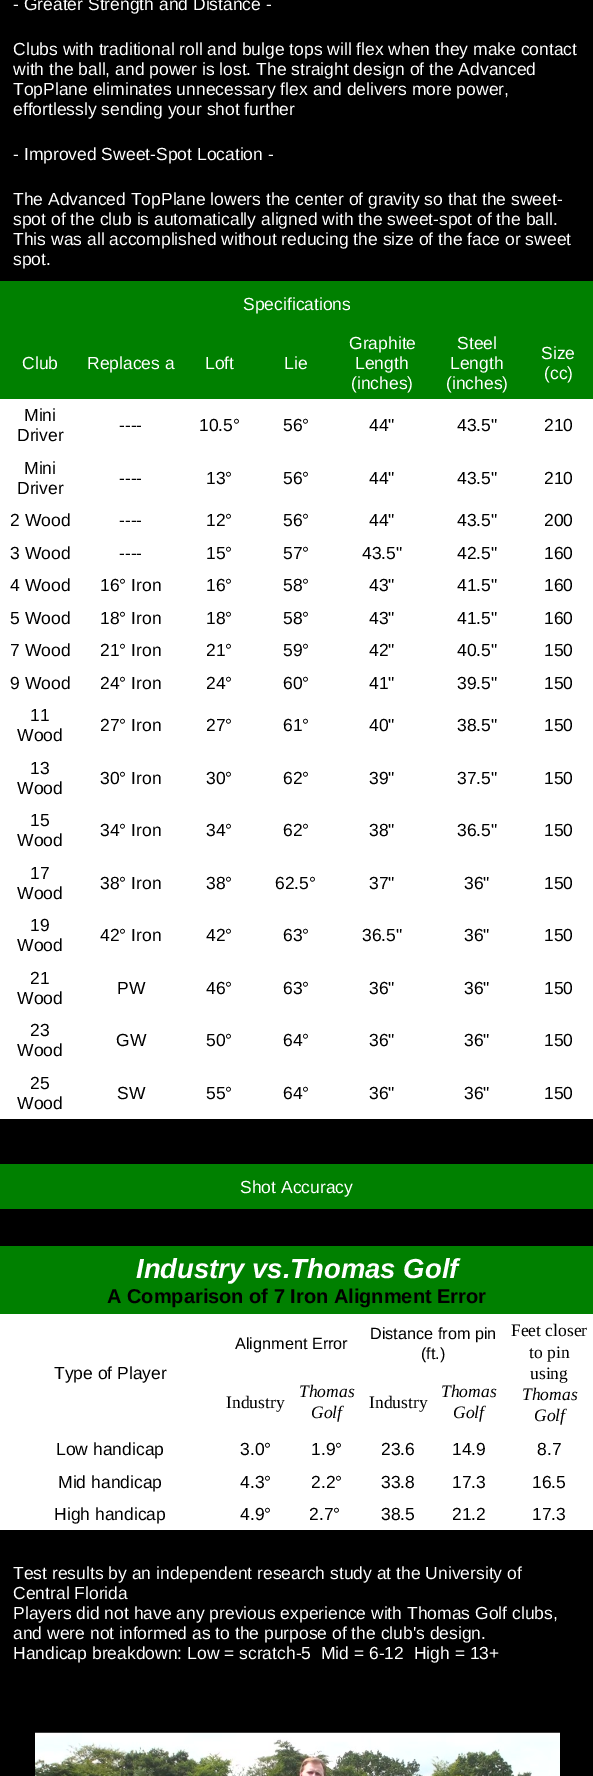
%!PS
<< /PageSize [593 1776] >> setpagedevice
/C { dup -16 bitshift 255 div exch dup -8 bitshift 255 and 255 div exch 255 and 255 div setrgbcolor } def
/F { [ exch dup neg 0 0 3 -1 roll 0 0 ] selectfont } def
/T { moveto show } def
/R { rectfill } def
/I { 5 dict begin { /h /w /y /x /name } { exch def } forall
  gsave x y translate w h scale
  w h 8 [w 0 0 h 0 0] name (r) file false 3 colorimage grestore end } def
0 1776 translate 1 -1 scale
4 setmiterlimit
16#000000 C
0 0 593 1776 R
/LiberationSans-Regular 17.5 F
16#FFFFFF C
(- Greater Strength and Distance -) 13 10 T
(Clubs with traditional roll and bulge tops will flex when they make contact) 13 55 T
(with the ball, and power is lost. The straight design of the Advanced) 13 75 T
(TopPlane eliminates unnecessary flex and delivers more power,) 13 95 T
(effortlessly sending your shot further) 13 115 T
(- Improved Sweet-Spot Location -) 13 160 T
(The Advanced TopPlane lowers the center of gravity so that the sweet-) 13 205 T
(spot of the club is automatically aligned with the sweet-spot of the ball.) 13 225 T
(This was all accomplished without reducing the size of the face or sweet) 13 245 T
(spot.) 13 265 T
16#008000 C
0 281 593 45 R
16#FFFFFF C
(Specifications) 243 310 T
0 399 593 720 R
16#008000 C
0 326 593 73 R
16#FFFFFF C
(Club) 22 369 T
(Replaces a) 87 369 T
(Loft) 205 369 T
(Lie) 284 369 T
(Graphite) 349 349 T
(Length) 355 369 T
(\(inches\)) 351 389 T
(Steel) 457 349 T
(Length) 450 369 T
(\(inches\)) 446 389 T
(Size) 541 359 T
(\(cc\)) 544 379 T
16#000000 C
(Mini) 24 421 T
(Driver) 17 441 T
(----) 119 431 T
(10.5°) 199 431 T
(56°) 283 431 T
(44") 369 431 T
(43.5") 457 431 T
(210) 544 431 T
(Mini) 24 474 T
(Driver) 17 494 T
(----) 119 484 T
(13°) 206 484 T
(56°) 283 484 T
(44") 369 484 T
(43.5") 457 484 T
(210) 544 484 T
(2 Wood) 10 526 T
(----) 119 526 T
(12°) 206 526 T
(56°) 283 526 T
(44") 369 526 T
(43.5") 457 526 T
(200) 544 526 T
(3 Wood) 10 559 T
(----) 119 559 T
(15°) 206 559 T
(57°) 283 559 T
(43.5") 362 559 T
(42.5") 457 559 T
(160) 544 559 T
(4 Wood) 10 591 T
(16° Iron) 100 591 T
(16°) 206 591 T
(58°) 283 591 T
(43") 369 591 T
(41.5") 457 591 T
(160) 544 591 T
(5 Wood) 10 624 T
(18° Iron) 100 624 T
(18°) 206 624 T
(58°) 283 624 T
(43") 369 624 T
(41.5") 457 624 T
(160) 544 624 T
(7 Wood) 10 656 T
(21° Iron) 100 656 T
(21°) 206 656 T
(59°) 283 656 T
(42") 369 656 T
(40.5") 457 656 T
(150) 544 656 T
(9 Wood) 10 689 T
(24° Iron) 100 689 T
(24°) 206 689 T
(60°) 283 689 T
(41") 369 689 T
(39.5") 457 689 T
(150) 544 689 T
(11) 30 721 T
(Wood) 17 741 T
(27° Iron) 100 731 T
(27°) 206 731 T
(61°) 283 731 T
(40") 369 731 T
(38.5") 457 731 T
(150) 544 731 T
(13) 30 774 T
(Wood) 17 794 T
(30° Iron) 100 784 T
(30°) 206 784 T
(62°) 283 784 T
(39") 369 784 T
(37.5") 457 784 T
(150) 544 784 T
(15) 30 826 T
(Wood) 17 846 T
(34° Iron) 100 836 T
(34°) 206 836 T
(62°) 283 836 T
(38") 369 836 T
(36.5") 457 836 T
(150) 544 836 T
(17) 30 879 T
(Wood) 17 899 T
(38° Iron) 100 889 T
(38°) 206 889 T
(62.5°) 275 889 T
(37") 369 889 T
(36") 464 889 T
(150) 544 889 T
(19) 30 931 T
(Wood) 17 951 T
(42° Iron) 100 941 T
(42°) 206 941 T
(63°) 283 941 T
(36.5") 362 941 T
(36") 464 941 T
(150) 544 941 T
(21) 30 984 T
(Wood) 17 1004 T
(PW) 117 994 T
(46°) 206 994 T
(63°) 283 994 T
(36") 369 994 T
(36") 464 994 T
(150) 544 994 T
(23) 30 1036 T
(Wood) 17 1056 T
(GW) 116 1046 T
(50°) 206 1046 T
(64°) 283 1046 T
(36") 369 1046 T
(36") 464 1046 T
(150) 544 1046 T
(25) 30 1089 T
(Wood) 17 1109 T
(SW) 117 1099 T
(55°) 206 1099 T
(64°) 283 1099 T
(36") 369 1099 T
(36") 464 1099 T
(150) 544 1099 T
16#008000 C
0 1164 593 45 R
16#FFFFFF C
(Shot Accuracy) 240 1193 T
0 1314 593 216 R
16#008000 C
0 1246 593 68 R
/LiberationSans-BoldItalic 27.5 F
16#FFFFFF C
(Industry vs.Thomas Golf) 136 1278 T
/LiberationSans-Bold 20 F
16#000000 C
(A Comparison of 7 Iron Alignment Error) 107 1303 T
/LiberationSans-Regular 16.25 F
(Alignment Error) 235 1349 T
(Distance from pin) 370 1339 T
(\(ft.\)) 421 1359 T
/LiberationSerif-Regular 17.5 F
(Feet closer) 511 1336 T
(to pin) 529 1358 T
(using) 530 1379 T
/LiberationSerif-Italic 17.5 F
(Thomas) 522 1400 T
(Golf) 534 1421 T
/LiberationSans-Regular 17.5 F
(Type of Player) 54 1379 T
/LiberationSerif-Regular 17.5 F
(Industry) 226 1408 T
/LiberationSerif-Italic 17.5 F
(Thomas) 299 1397 T
(Golf) 311 1418 T
/LiberationSerif-Regular 17.5 F
(Industry) 369 1408 T
/LiberationSerif-Italic 17.5 F
(Thomas) 441 1397 T
(Golf) 453 1418 T
/LiberationSans-Regular 17.5 F
(Low handicap) 56 1455 T
(3.0°) 240 1455 T
(1.9°) 311 1455 T
(23.6) 381 1455 T
(14.9) 452 1455 T
(8.7) 537 1455 T
(Mid handicap) 58 1488 T
(4.3°) 240 1488 T
(2.2°) 311 1488 T
(33.8) 381 1488 T
(17.3) 452 1488 T
(16.5) 532 1488 T
(High handicap) 54 1520 T
(4.9°) 240 1520 T
(2.7°) 309 1520 T
(38.5) 381 1520 T
(21.2) 452 1520 T
(17.3) 532 1520 T
16#FFFFFF C
(Test results by an independent research study at the University of) 13 1579 T
(Central Florida) 13 1599 T
(Players did not have any previous experience with Thomas Golf clubs,) 13 1619 T
(and were not informed as to the purpose of the club's design.) 13 1639 T
(Handicap breakdown: Low = scratch-5  Mid = 6-12  High = 13+) 13 1659 T
(1.rgb) 35 1732 525 44 I
showpage
